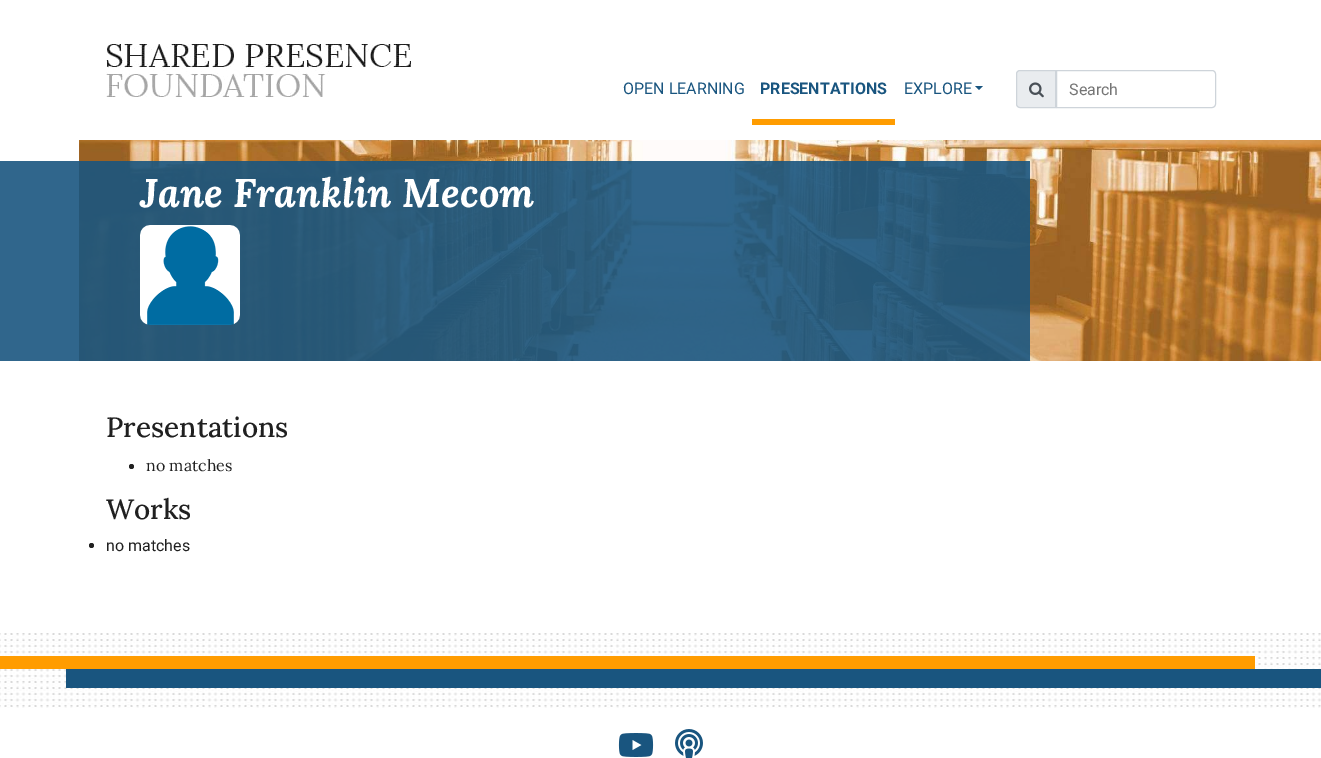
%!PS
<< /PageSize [1321 758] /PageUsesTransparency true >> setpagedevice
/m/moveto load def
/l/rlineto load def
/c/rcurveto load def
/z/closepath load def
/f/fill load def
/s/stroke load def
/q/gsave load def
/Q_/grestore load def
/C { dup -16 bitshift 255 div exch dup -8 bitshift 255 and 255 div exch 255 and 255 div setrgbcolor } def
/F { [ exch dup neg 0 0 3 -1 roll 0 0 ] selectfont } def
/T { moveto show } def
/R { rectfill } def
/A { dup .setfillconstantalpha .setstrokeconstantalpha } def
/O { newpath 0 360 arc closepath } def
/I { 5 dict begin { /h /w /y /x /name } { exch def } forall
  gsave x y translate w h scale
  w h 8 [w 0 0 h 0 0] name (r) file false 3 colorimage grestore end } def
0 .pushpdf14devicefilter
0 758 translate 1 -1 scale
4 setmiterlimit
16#FFFFFF C
0 0 1321 758 R
(1.rgb) 106 44 305 53 I
/Roboto-Regular 16 F
16#19557F C
(OPEN LEARNING) 623 94 T
/Roboto-Bold 16 F
(PRESENTATIONS) 760 94 T
16#FF9C00 C
752 119 143 6 R
/Roboto-Regular 16 F
16#19557F C
(EXPLORE) 904 94 T
975 86 m 8 0 l -4 4 l z f
16#E9ECEF C
1020 70.5 m 35.5 0 l 0 37 l -35.5 0 l -2 0 -3.5 -1.5 -3.5 -3.5 c 0 -30 l 0 -2 1.5 -3.5 3.5 -3.5 c z q f Q_
16#CED4DA C
s
(2.rgb) 1029 82 15 16 I
1056.5 70.5 m 155.5 0 l 2 0 3.5 1.5 3.5 3.5 c 0 30 l 0 2 -1.5 3.5 -3.5 3.5 c -155.5 0 l z s
16#757575 C
(Search) 1069 95 T
(3.rgb) 79 140 1242 221 I
0.9 A
16#19557F C
0 161 1030 200 R
/Lora-BoldItalic 40 F
1 A
16#FFFFFF C
(Jane Franklin Mecom) 140 207 T
(4.rgb) 140 225 100 100 I
/Lora-Medium 28 F
16#202020 C
(Presentations) 106 437 T
131.5 466.5 2.5 O f
/Lora-Regular 16 F
(no matches) 146 471 T
/Lora-Medium 28 F
(Works) 106 519 T
91.5 545.5 2.5 O f
/Roboto-Regular 16 F
(no matches) 106 551 T
(5.rgb) 0 633 1321 75 I
16#FF9C00 C
0 656 1255 13 R
16#19557F C
66 669 1255 19 R
(6.rgb) 618 733 36 24 I
(7.rgb) 675 729 28 29 I
.poppdf14devicefilter showpage
